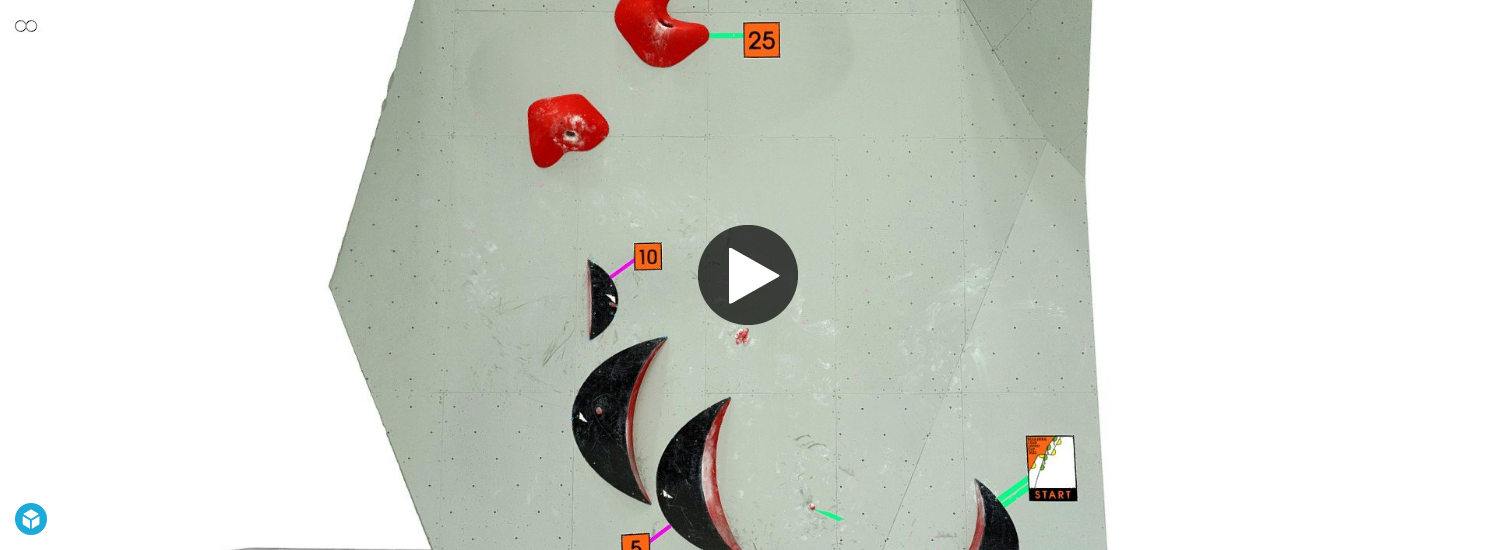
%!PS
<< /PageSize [1495 550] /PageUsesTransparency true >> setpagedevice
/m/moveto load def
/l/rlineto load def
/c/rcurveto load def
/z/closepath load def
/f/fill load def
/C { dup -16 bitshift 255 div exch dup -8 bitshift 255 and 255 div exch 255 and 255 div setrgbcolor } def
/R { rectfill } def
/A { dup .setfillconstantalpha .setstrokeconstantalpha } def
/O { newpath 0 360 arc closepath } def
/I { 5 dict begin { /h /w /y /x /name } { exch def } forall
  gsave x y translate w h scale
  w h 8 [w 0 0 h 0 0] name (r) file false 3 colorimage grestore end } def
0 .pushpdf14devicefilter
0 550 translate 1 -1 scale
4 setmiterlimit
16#FFFFFF C
0 0 1495 550 R
(1.rgb) 220 0 889 550 I
0.7 A
16#000000 C
748 275 50 O f
1 A
16#FFFFFF C
778 277 m -39 22 l -1 0 -8 6 -10 4 c 0 -54 l 0 -1 1 -1 2 -1 c 48 27 l 1 1 0 1 -1 2 c z f
(2.rgb) 15 503 32 32 I
(3.rgb) 10 18 32 16 I
.poppdf14devicefilter showpage
